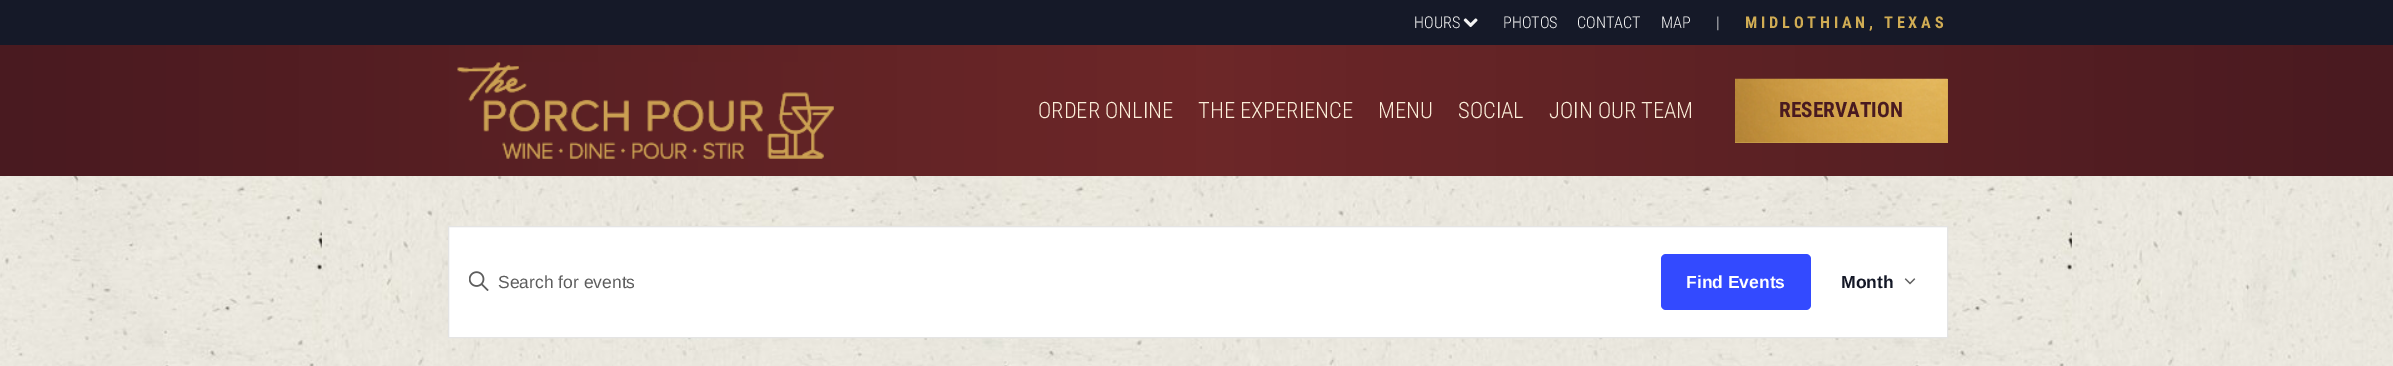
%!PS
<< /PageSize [2393 366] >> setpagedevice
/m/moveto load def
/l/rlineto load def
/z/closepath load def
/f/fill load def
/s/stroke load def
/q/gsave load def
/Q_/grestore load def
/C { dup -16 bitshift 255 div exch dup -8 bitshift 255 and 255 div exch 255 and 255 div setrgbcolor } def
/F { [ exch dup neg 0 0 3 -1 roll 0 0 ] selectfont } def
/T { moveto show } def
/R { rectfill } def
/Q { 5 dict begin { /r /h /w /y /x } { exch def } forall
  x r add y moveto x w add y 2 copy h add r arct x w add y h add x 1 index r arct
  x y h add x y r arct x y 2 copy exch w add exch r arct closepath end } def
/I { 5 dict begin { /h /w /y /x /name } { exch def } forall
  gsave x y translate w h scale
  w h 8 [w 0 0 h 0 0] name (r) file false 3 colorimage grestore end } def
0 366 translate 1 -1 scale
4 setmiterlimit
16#FFFFFF C
0 0 2393 366 R
(1.rgb) 0 176 2393 190 I
q 0 45 m 2393 0 l 0 131 l -2393 0 l z clip newpath
<< /ShadingType 2 /ColorSpace /DeviceRGB /Coords [0 88 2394 88] /Extend [true true] /Function << /FunctionType 3 /Domain [0 1] /Functions [<< /FunctionType 2 /Domain [0 1] /C0 [.286 .102 .125] /C1 [.427 .153 .157] /N 1 >> << /FunctionType 2 /Domain [0 1] /C0 [.427 .153 .157] /C1 [.286 .102 .125] /N 1 >>] /Bounds [.5] /Encode [0 1 0 1] >> >> shfill Q_
16#151928 C
0 0 2393 45 R
/RobotoCondensed-Light 16.25 F
16#F4F4F4 C
(HOURS) 1414 28 T
(2.rgb) 1463 18 15 10 I
(PHOTOS) 1503 28 T
(CONTACT) 1577 28 T
(MAP) 1661 28 T
(|) 1716 28 T
/RobotoCondensed-Bold 16.25 F
16#D0AC54 C
1745 28 m 3.75 0 (MIDLOTHIAN, TEXAS) ashow
(3.rgb) 457 62 377 97 I
/RobotoCondensed-Light 22.5 F
16#FBEED9 C
(ORDER ONLINE) 1038 118 T
(THE EXPERIENCE) 1198 118 T
(MENU) 1378 118 T
(SOCIAL) 1458 118 T
(JOIN OUR TEAM) 1549 118 T
16#D0AC54 C
1735 79 213 64 R
(4.rgb) 1735 78 213 65 I
/RobotoCondensed-Bold 21.25 F
16#491A20 C
(RESERVATION) 1779 117 T
16#FFFFFF C
448.5 226.5 m 1499 0 l 0 111 l -1499 0 l z q f Q_
16#E4E4E4 C
s
(5.rgb) 469 271 20 20 I
/LiberationSans-Regular 17.5 F
16#5D5D5D C
(Search for events) 498 288 T
16#334AFF C
1661 254 150 56 5 Q f
/LiberationSans-Bold 17.5 F
16#FFFFFF C
(Find Events) 1686 288 T
16#141827 C
(Month) 1841 288 T
(6.rgb) 1904 278 12 7 I
showpage
